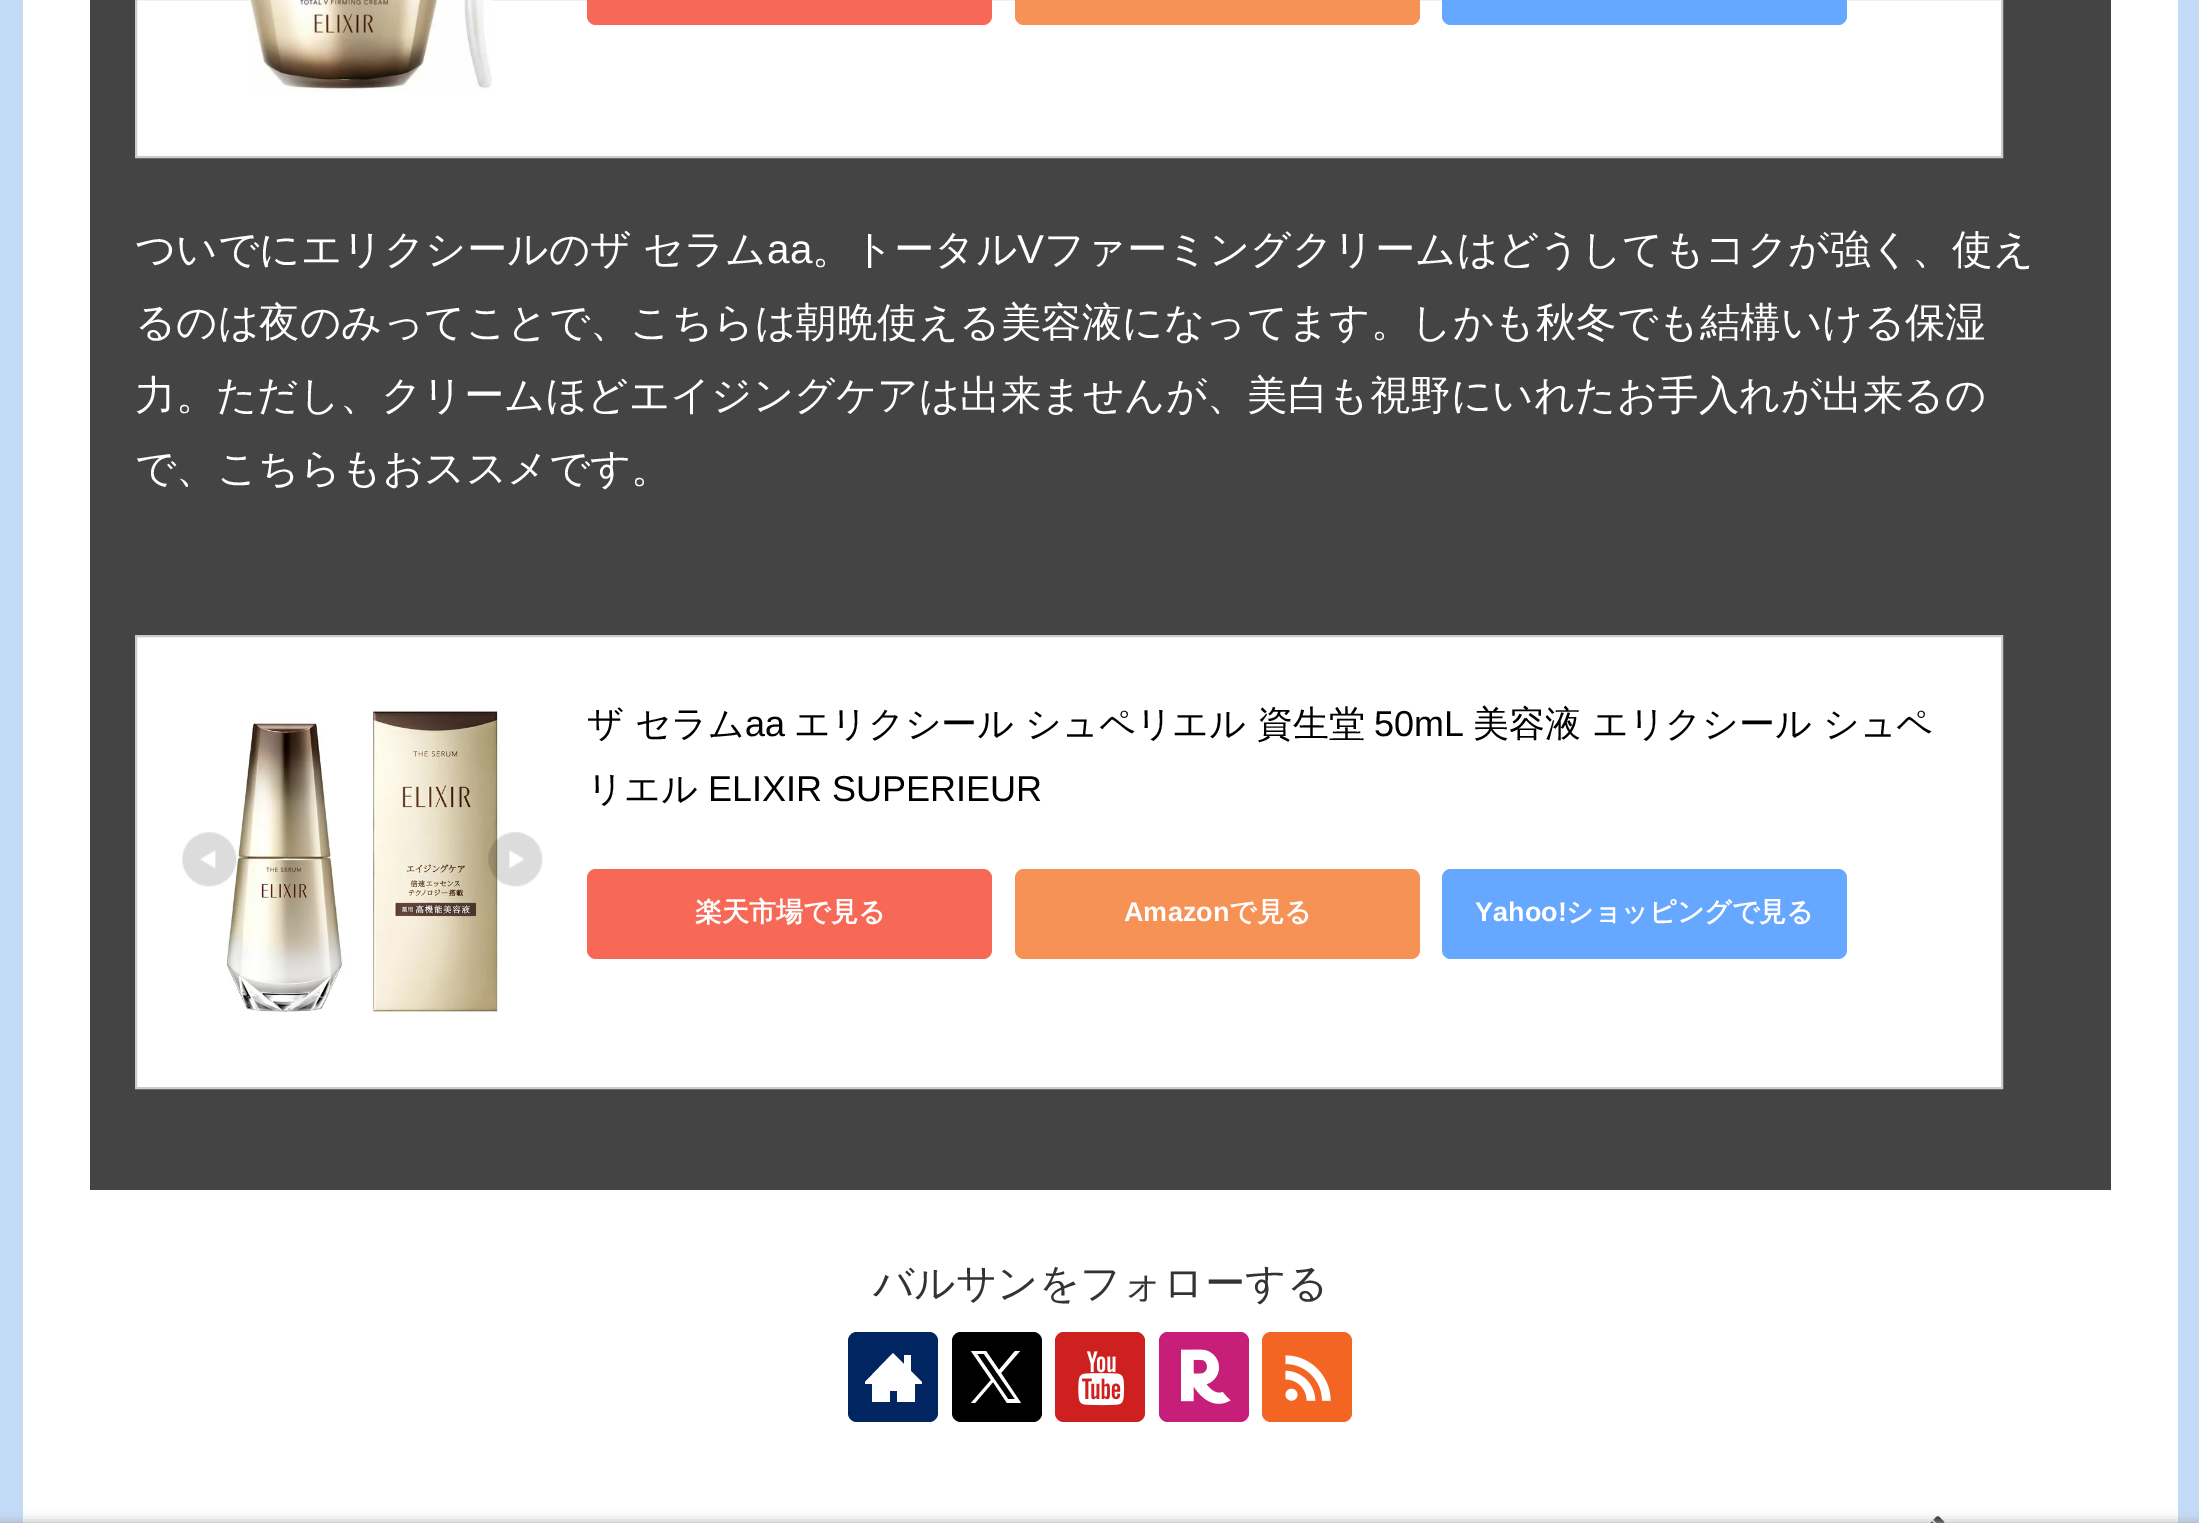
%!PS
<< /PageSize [2199 1523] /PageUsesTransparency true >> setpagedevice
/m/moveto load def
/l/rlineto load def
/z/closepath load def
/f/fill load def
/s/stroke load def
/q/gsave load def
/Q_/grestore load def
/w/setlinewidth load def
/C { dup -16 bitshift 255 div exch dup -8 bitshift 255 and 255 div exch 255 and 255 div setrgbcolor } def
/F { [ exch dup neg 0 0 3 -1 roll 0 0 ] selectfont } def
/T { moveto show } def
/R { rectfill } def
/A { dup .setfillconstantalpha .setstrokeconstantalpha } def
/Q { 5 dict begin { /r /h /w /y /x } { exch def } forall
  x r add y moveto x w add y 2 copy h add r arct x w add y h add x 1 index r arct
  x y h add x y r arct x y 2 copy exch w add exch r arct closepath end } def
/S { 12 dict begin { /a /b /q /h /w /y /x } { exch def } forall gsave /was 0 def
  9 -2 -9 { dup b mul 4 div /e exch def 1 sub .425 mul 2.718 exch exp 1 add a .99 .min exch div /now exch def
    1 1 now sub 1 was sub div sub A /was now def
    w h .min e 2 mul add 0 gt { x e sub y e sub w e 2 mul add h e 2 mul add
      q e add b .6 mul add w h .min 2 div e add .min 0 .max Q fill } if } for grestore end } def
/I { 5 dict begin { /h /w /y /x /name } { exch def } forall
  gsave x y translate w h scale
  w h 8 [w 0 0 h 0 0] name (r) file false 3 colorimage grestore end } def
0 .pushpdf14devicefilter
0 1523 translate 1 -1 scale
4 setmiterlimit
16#C3DBF7 C
0 0 2199 1523 R
16#FFFFFF C
23 0 2155 1523 R
16#444444 C
90 0 2021 1190 R
16#FFFFFF C
136 -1 m 1866 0 l 0 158 l -1866 0 l z q f Q_
16#CCCCCC C
2 w
s
(1.rgb) 249 0 243 93 I
16#F76956 C
587 -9 405 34 9 Q f
16#F79256 C
1015 -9 405 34 9 Q f
16#66A7FF C
1442 -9 405 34 9 Q f
/WenQuanYiZenHei-Medium 40.5 F
16#FFFFFF C
135 263 m -1 0 32 (ついでにエリクシールのザ セラム) widthshow
/LiberationSans-Regular 40.5 F
(aa) 767 263 T
/WenQuanYiZenHei-Medium 40.5 F
(。トータル) 812 263 T
/LiberationSans-Regular 40.5 F
(V) 1017 263 T
/WenQuanYiZenHei-Medium 40.5 F
(ファーミングクリームはどうしてもコクが強く、使え) 1044 263 T
(るのは夜のみってことで、こちらは朝晩使える美容液になってます。しかも秋冬でも結構いける保湿) 135 336 T
(力。ただし、クリームほどエイジングケアは出来ませんが、美白も視野にいれたお手入れが出来るの) 135 409 T
(で、こちらもおススメです。) 135 482 T
136 636 m 1866 0 l 0 452 l -1866 0 l z q f Q_
16#CCCCCC C
s
(3.rgb) 225 710 274 304 I
(2.rgb) 182 832 55 55 I
(4.rgb) 488 832 55 55 I
/WenQuanYiZenHei-Medium 36 F
16#000000 C
(ザ セラム) 587 736 T
/LiberationSans-Regular 36 F
(aa) 745 736 T
/WenQuanYiZenHei-Medium 36 F
(エリクシール シュペリエル 資生堂) 794 736 T
/LiberationSans-Regular 36 F
(50mL) 1374 736 T
/WenQuanYiZenHei-Medium 36 F
(美容液 エリクシール シュペ) 1473 736 T
(リエル) 587 801 T
/LiberationSans-Regular 36 F
(ELIXIR SUPERIEUR) 708 801 T
16#F76956 C
587 869 405 90 9 Q f
/WenQuanYiZenHei-Bold 27 F
16#FFFFFF C
(楽天市場で見る) 695 921 T
16#F79256 C
1015 869 405 90 9 Q f
/LiberationSans-Bold 27 F
16#FFFFFF C
(Amazon) 1124 921 T
/WenQuanYiZenHei-Bold 27 F
(で見る) 1229 921 T
16#66A7FF C
1442 869 405 90 9 Q f
/LiberationSans-Bold 27 F
16#FFFFFF C
(Yahoo!) 1475 921 T
/WenQuanYiZenHei-Bold 27 F
(ショッピングで見る) 1566 921 T
/WenQuanYiZenHei-Medium 40.5 F
16#333333 C
(バルサンをフォローする) 873 1297 T
16#002561 C
848 1332 90 90 9 Q f
16#FFFFFF C
922 1382 m -11 -11 l 0 -16 l -7 0 l 0 9 l -11 -11 l -28 29 l 0 2 l 7 0 l 0 18 l 18 0 l 0 -11 l 7 0 l 0 11 l 18 0 l 0 -18 l 7 0 l z f
16#000000 C
952 1332 90 90 9 Q f
16#FFFFFF C
1001 1373 m 19 -22 l -5 0 l -16 19 l -13 -19 l -15 0 l 20 29 l -20 23 l 4 0 l 18 -21 l 14 21 l 14 0 l z 977 1354 m 7 0 l 31 45 l -7 0 l z f
16#CD201F C
1055 1332 90 90 9 Q f
(5.rgb) 1078 1351 47 55 I
16#C61E79 C
1159 1332 90 90 9 Q f
(6.rgb) 1181 1349 50 55 I
16#F26522 C
1262 1332 90 90 9 Q f
(7.rgb) 1285 1355 46 46 I
(8.rgb) 1930 1516 15 7 I
16#A9A9A9 C
0 1523 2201 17 0 5.5 1 S
.poppdf14devicefilter showpage
